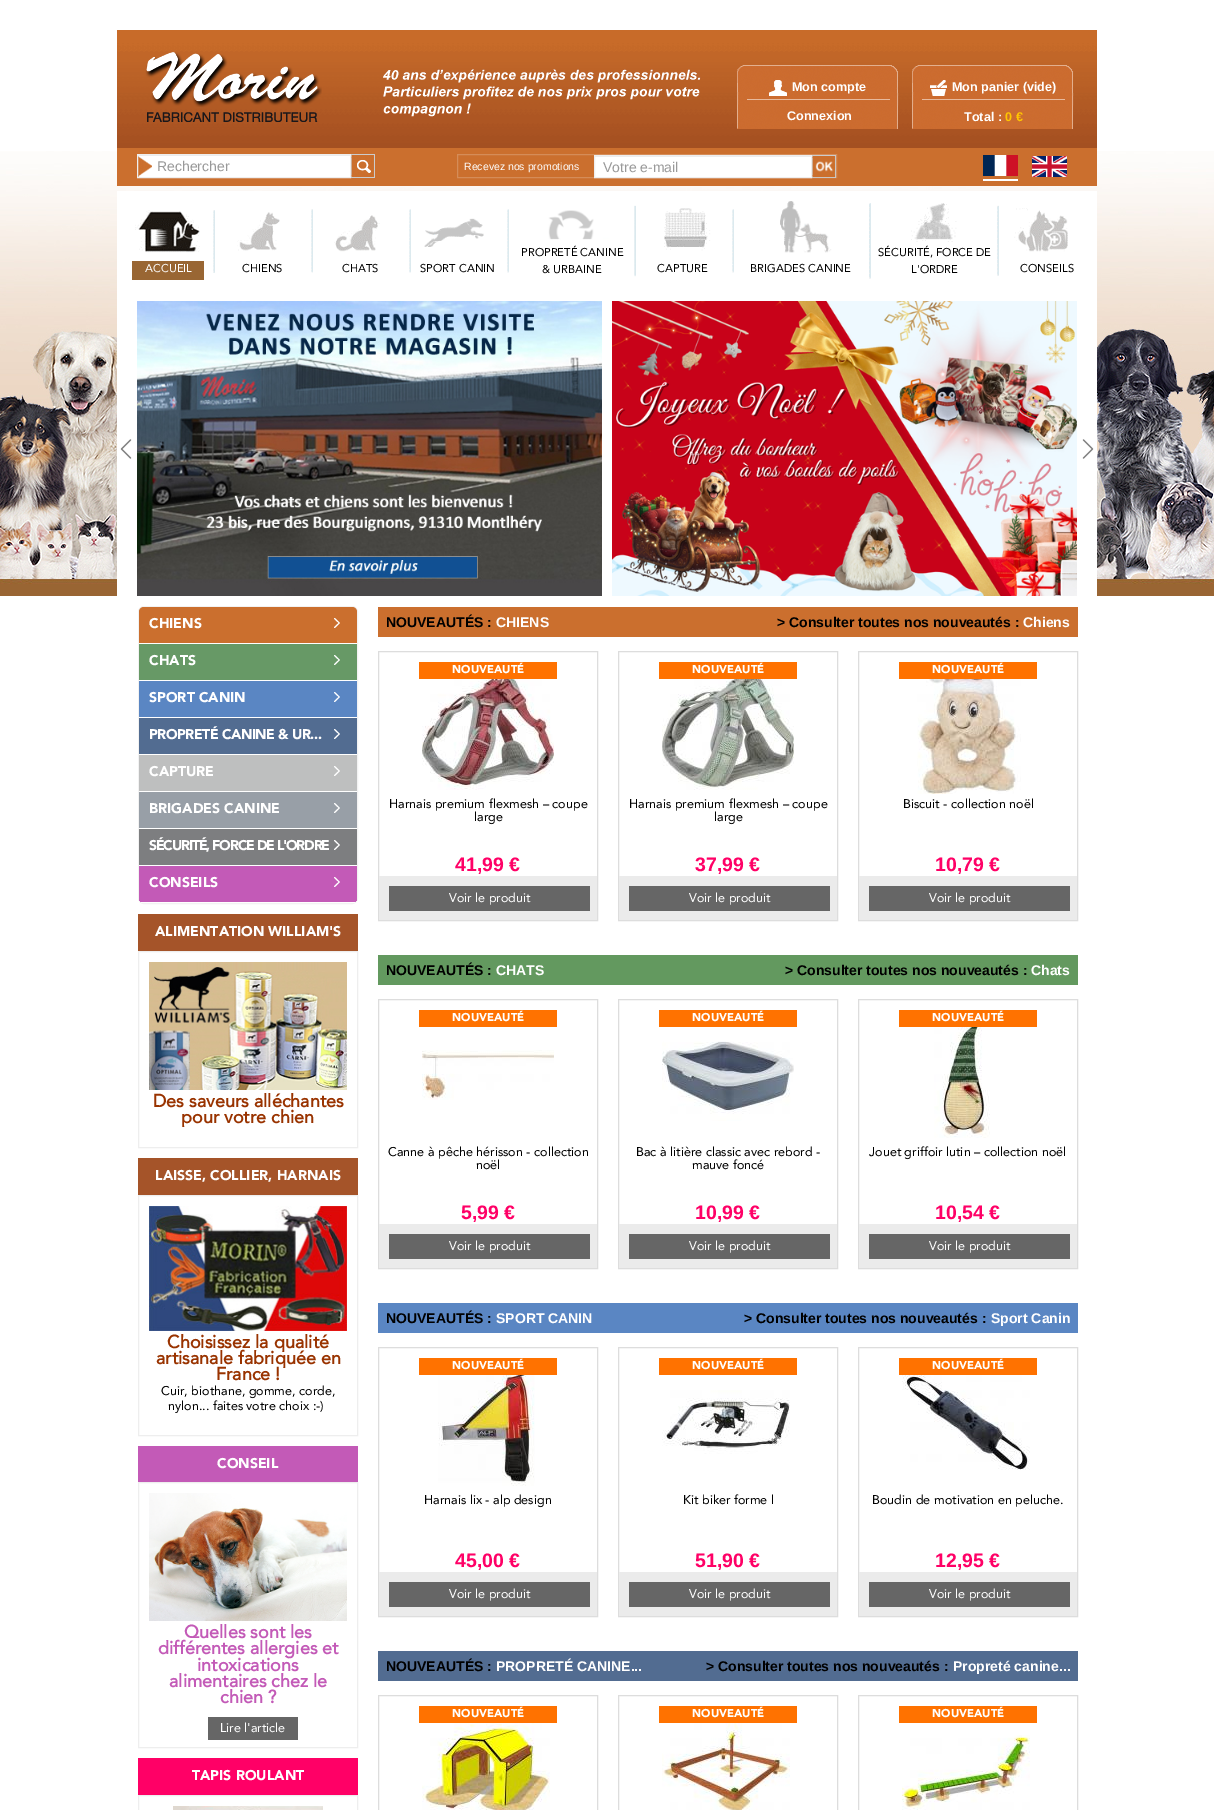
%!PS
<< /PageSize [1214 1810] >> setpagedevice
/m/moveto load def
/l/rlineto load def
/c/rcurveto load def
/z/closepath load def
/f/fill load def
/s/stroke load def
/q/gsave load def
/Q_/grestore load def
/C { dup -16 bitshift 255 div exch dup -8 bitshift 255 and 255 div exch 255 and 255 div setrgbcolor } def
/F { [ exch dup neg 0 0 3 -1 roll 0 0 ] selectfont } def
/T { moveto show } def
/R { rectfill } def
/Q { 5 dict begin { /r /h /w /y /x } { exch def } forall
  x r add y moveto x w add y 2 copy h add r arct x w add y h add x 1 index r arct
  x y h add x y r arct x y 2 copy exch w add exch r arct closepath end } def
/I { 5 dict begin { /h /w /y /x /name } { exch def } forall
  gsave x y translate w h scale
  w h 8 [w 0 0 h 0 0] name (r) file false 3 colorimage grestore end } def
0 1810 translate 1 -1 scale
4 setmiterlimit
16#FFFFFF C
0 0 1214 1810 R
(1.rgb) 0 151 1214 445 I
(2.rgb) 117 30 980 118 I
(3.rgb) 145 52 177 70 I
(4.rgb) 383 69 318 48 I
(5.rgb) 737 65 162 64 I
(6.rgb) 769 80 18 16 I
/LiberationSans-Bold 12.6 F
(Mon compte) 792 91 T
(Connexion) 787 120 T
(5.rgb) 912 65 162 64 I
(7.rgb) 930 80 17 16 I
(Mon panier \(vide\)) 952 91 T
(Total :) 964 121 T
16#FFC600 C
(0 €) 1005 121 T
16#CB6F2E C
117 148 980 38 R
16#FFFFFF C
152 156 198 21 R
(8.rgb) 138 156 14 21 I
16#ECECEC C
138 155 212 1 R
16#EEEEEE C
137.5 154.5 213 23 rectstroke
/LiberationSans-Regular 14 F
16#999999 C
(Rechercher) 157 171 T
(9.rgb) 351 154 24 24 I
16#D58C58 C
457.5 154.5 379 23 rectstroke
/LiberationSans-Regular 10.5 F
16#FFFFFF C
(Recevez nos promotions) 464 170 T
595 157 216 20 R
16#ECECEC C
595 156 216 1 R
16#EEEEEE C
594.5 155.5 217 22 rectstroke
/LiberationSans-Regular 14 F
16#999999 C
(Votre e-mail) 603 172 T
(10.rgb) 812 155 24 23 I
(11.rgb) 983 155 35 21 I
(12.rgb) 1032 156 35 21 I
16#FFFFFF C
983 179 35 2 R
117 191 980 405 R
(13.rgb) 135 210 80 63 I
16#996633 C
132 261 72 19 R
/Avenir-Regular 11.25 F
16#FFFFFF C
(ACCUEIL) 145 272 T
(14.rgb) 237 209 76 64 I
16#000000 C
(CHIENS) 242 272 T
(15.rgb) 334 209 77 64 I
(CHATS) 342 272 T
(16.rgb) 424 209 85 64 I
(SPORT CANIN) 420 272 T
(17.rgb) 548 205 88 72 I
(PROPRETÉ CANINE) 521 256 T
(& URBAINE) 542 273 T
(18.rgb) 664 208 70 65 I
(CAPTURE) 657 272 T
(19.rgb) 780 201 91 78 I
(BRIGADES CANINE) 750 272 T
(20.rgb) 911 203 88 73 I
(SÉCURITÉ, FORCE DE) 878 256 T
(L'ORDRE) 911 273 T
(21.rgb) 1014 208 54 44 I
(CONSEILS) 1020 272 T
(22.rgb) 120 439 12 20 I
(23.rgb) 137 301 465 295 I
(24.rgb) 612 301 465 295 I
(25.rgb) 1082 439 12 20 I
16#F2F2F2 C
138.5 606.5 219 297 5.5 Q s
16#CB6F2E C
144 607 m 208 0 l 3 0 5 2 5 5 c 0 31 l -218 0 l 0 -31 l 0 -3 2 -5 5 -5 c z f
/Avenir-Black 14 F
16#FFFFFF C
(CHIENS) 149 628 T
(26.rgb) 334 618 6 10 I
16#679966 C
139 644 218 36 R
16#FFFFFF C
(CHATS) 149 665 T
(27.rgb) 334 655 6 10 I
16#5A86C3 C
139 681 218 36 R
16#FFFFFF C
(SPORT CANIN) 149 702 T
(28.rgb) 334 692 6 10 I
16#526C91 C
139 718 218 36 R
16#FFFFFF C
149 739 m -.5 0 (PROPRETÉ CANINE & UR...) ashow
(29.rgb) 334 729 6 10 I
16#BEBFBF C
139 755 218 36 R
16#FFFFFF C
(CAPTURE) 149 776 T
(30.rgb) 334 766 6 10 I
16#989FA7 C
139 792 218 36 R
16#FFFFFF C
(BRIGADES CANINE) 149 813 T
(31.rgb) 334 803 6 10 I
16#7D7E80 C
139 829 218 36 R
16#FFFFFF C
149 850 m -1.2 0 (SÉCURITÉ, FORCE DE L'ORDRE) ashow
(32.rgb) 334 840 6 10 I
q
139 607 218 296 5 Q clip newpath
139 902 218 1 R
16#C35AB7 C
139 866 218 36 R
Q_
(CONSEILS) 149 887 T
(33.rgb) 334 877 6 10 I
16#A55429 C
138 914 220 37 R
16#FFFFFF C
(ALIMENTATION WILLIAM'S) 155 936 T
16#EEEEEE C
138.5 951.5 219 196 rectstroke
(34.rgb) 149 962 198 128 I
/Avenir-Bold 18 F
16#993300 C
(Des saveurs alléchantes) 153 1107 T
(pour votre chien) 181 1123 T
16#A55429 C
138 1158 220 37 R
/Avenir-Black 14 F
16#FFFFFF C
(LAISSE, COLLIER, HARNAIS) 155 1180 T
16#EEEEEE C
138.5 1195.5 219 240 rectstroke
(35.rgb) 149 1206 198 125 I
/Avenir-Bold 18 F
16#993300 C
(Choisissez la qualité) 167 1348 T
(artisanale fabriquée en) 156 1364 T
(France !) 216 1380 T
/Avenir-Regular 12.6 F
16#000000 C
(Cuir, biothane, gomme, corde,) 161 1395 T
(nylon... faites votre choix :-\)) 168 1410 T
16#C35AB7 C
138 1446 220 36 R
/Avenir-Black 14 F
16#FFFFFF C
(CONSEIL) 217 1468 T
16#EEEEEE C
138.5 1482.5 219 265 rectstroke
(36.rgb) 149 1493 198 128 I
/Avenir-Bold 18 F
16#C35AB7 C
(Quelles sont les) 184 1638 T
(différentes allergies et) 158 1654 T
(intoxications) 197 1671 T
(alimentaires chez le) 169 1687 T
(chien ?) 220 1703 T
16#666666 C
208 1717 90 23 R
/Avenir-Regular 12.6 F
16#FFFFFF C
(Lire l'article) 220 1732 T
16#FF0066 C
138 1758 220 37 R
/Avenir-Black 14 F
16#FFFFFF C
(TAPIS ROULANT) 192 1780 T
16#EEEEEE C
138.5 1795.5 219 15 rectstroke
(37.rgb) 173 1806 150 4 I
16#CB6F2E C
378 607 700 30 R
/LiberationSans-Bold 14 F
16#000000 C
(NOUVEAUTÉS :) 386 627 T
16#FFFFFF C
(CHIENS) 496 627 T
16#000000 C
(> Consulter toutes nos nouveautés :) 777 627 T
16#FFFFFF C
(Chiens) 1023 627 T
16#DDDDDD C
378.5 651.5 219 269 rectstroke
16#FF7200 C
419 662 138 17 R
/Avenir-Black 11.25 F
16#FFFFFF C
(NOUVEAUTÉ) 452 673 T
(38.rgb) 422 679 132 111 I
/Avenir-Regular 12.6 F
16#000000 C
(Harnais premium flexmesh – coupe) 389 808 T
(large) 474 821 T
/LiberationSans-Bold 19.5 F
16#FF0066 C
(41,99 €) 455 871 T
16#EBEBEB C
379 876 218 44 R
16#666666 C
389 886 201 25 R
/Avenir-Regular 12.6 F
16#FFFFFF C
(Voir le produit) 449 902 T
16#DDDDDD C
618.5 651.5 219 269 rectstroke
16#FF7200 C
659 662 138 17 R
/Avenir-Black 11.25 F
16#FFFFFF C
(NOUVEAUTÉ) 692 673 T
(39.rgb) 662 679 132 111 I
/Avenir-Regular 12.6 F
16#000000 C
(Harnais premium flexmesh – coupe) 629 808 T
(large) 714 821 T
/LiberationSans-Bold 19.5 F
16#FF0066 C
(37,99 €) 695 871 T
16#EBEBEB C
619 876 218 44 R
16#666666 C
629 886 201 25 R
/Avenir-Regular 12.6 F
16#FFFFFF C
(Voir le produit) 689 902 T
16#DDDDDD C
858.5 651.5 219 269 rectstroke
16#FF7200 C
899 662 138 17 R
/Avenir-Black 11.25 F
16#FFFFFF C
(NOUVEAUTÉ) 932 673 T
(40.rgb) 917 679 104 115 I
/Avenir-Regular 12.6 F
16#000000 C
(Biscuit - collection noël) 903 808 T
/LiberationSans-Bold 19.5 F
16#FF0066 C
(10,79 €) 935 871 T
16#EBEBEB C
859 876 218 44 R
16#666666 C
869 886 201 25 R
/Avenir-Regular 12.6 F
16#FFFFFF C
(Voir le produit) 929 902 T
16#63995F C
378 955 700 30 R
/LiberationSans-Bold 14 F
16#000000 C
(NOUVEAUTÉS :) 386 975 T
16#FFFFFF C
(CHATS) 496 975 T
16#000000 C
(> Consulter toutes nos nouveautés :) 785 975 T
16#FFFFFF C
(Chats) 1031 975 T
16#DDDDDD C
378.5 999.5 219 269 rectstroke
16#FF7200 C
419 1010 138 17 R
/Avenir-Black 11.25 F
16#FFFFFF C
(NOUVEAUTÉ) 452 1021 T
(41.rgb) 422 1050 132 50 I
/Avenir-Regular 12.6 F
16#000000 C
(Canne à pêche hérisson - collection) 388 1156 T
(noël) 476 1169 T
/LiberationSans-Bold 19.5 F
16#FF0066 C
(5,99 €) 461 1219 T
16#EBEBEB C
379 1224 218 44 R
16#666666 C
389 1234 201 25 R
/Avenir-Regular 12.6 F
16#FFFFFF C
(Voir le produit) 449 1250 T
16#DDDDDD C
618.5 999.5 219 269 rectstroke
16#FF7200 C
659 1010 138 17 R
/Avenir-Black 11.25 F
16#FFFFFF C
(NOUVEAUTÉ) 692 1021 T
(42.rgb) 662 1041 132 80 I
/Avenir-Regular 12.6 F
16#000000 C
(Bac à litière classic avec rebord -) 636 1156 T
(mauve foncé) 692 1169 T
/LiberationSans-Bold 19.5 F
16#FF0066 C
(10,99 €) 695 1219 T
16#EBEBEB C
619 1224 218 44 R
16#666666 C
629 1234 201 25 R
/Avenir-Regular 12.6 F
16#FFFFFF C
(Voir le produit) 689 1250 T
16#DDDDDD C
858.5 999.5 219 269 rectstroke
16#FF7200 C
899 1010 138 17 R
/Avenir-Black 11.25 F
16#FFFFFF C
(NOUVEAUTÉ) 932 1021 T
(43.rgb) 934 1027 56 111 I
/Avenir-Regular 12.6 F
16#000000 C
(Jouet griffoir lutin – collection noël) 869 1156 T
/LiberationSans-Bold 19.5 F
16#FF0066 C
(10,54 €) 935 1219 T
16#EBEBEB C
859 1224 218 44 R
16#666666 C
869 1234 201 25 R
/Avenir-Regular 12.6 F
16#FFFFFF C
(Voir le produit) 929 1250 T
16#5A86C3 C
378 1303 700 30 R
/LiberationSans-Bold 14 F
16#000000 C
(NOUVEAUTÉS :) 386 1323 T
16#FFFFFF C
(SPORT CANIN) 496 1323 T
16#000000 C
(> Consulter toutes nos nouveautés :) 744 1323 T
16#FFFFFF C
(Sport Canin) 991 1323 T
16#DDDDDD C
378.5 1347.5 219 269 rectstroke
16#FF7200 C
419 1358 138 17 R
/Avenir-Black 11.25 F
16#FFFFFF C
(NOUVEAUTÉ) 452 1369 T
(44.rgb) 438 1375 97 111 I
/Avenir-Regular 12.6 F
16#000000 C
(Harnais lix - alp design) 424 1504 T
/LiberationSans-Bold 19.5 F
16#FF0066 C
(45,00 €) 455 1567 T
16#EBEBEB C
379 1572 218 44 R
16#666666 C
389 1582 201 25 R
/Avenir-Regular 12.6 F
16#FFFFFF C
(Voir le produit) 449 1598 T
16#DDDDDD C
618.5 1347.5 219 269 rectstroke
16#FF7200 C
659 1358 138 17 R
/Avenir-Black 11.25 F
16#FFFFFF C
(NOUVEAUTÉ) 692 1369 T
(45.rgb) 662 1390 128 64 I
/Avenir-Regular 12.6 F
16#000000 C
(Kit biker forme l) 683 1504 T
/LiberationSans-Bold 19.5 F
16#FF0066 C
(51,90 €) 695 1567 T
16#EBEBEB C
619 1572 218 44 R
16#666666 C
629 1582 201 25 R
/Avenir-Regular 12.6 F
16#FFFFFF C
(Voir le produit) 689 1598 T
16#DDDDDD C
858.5 1347.5 219 269 rectstroke
16#FF7200 C
899 1358 138 17 R
/Avenir-Black 11.25 F
16#FFFFFF C
(NOUVEAUTÉ) 932 1369 T
(46.rgb) 902 1375 128 95 I
/Avenir-Regular 12.6 F
16#000000 C
(Boudin de motivation en peluche.) 872 1504 T
/LiberationSans-Bold 19.5 F
16#FF0066 C
(12,95 €) 935 1567 T
16#EBEBEB C
859 1572 218 44 R
16#666666 C
869 1582 201 25 R
/Avenir-Regular 12.6 F
16#FFFFFF C
(Voir le produit) 929 1598 T
16#526C91 C
378 1651 700 30 R
/LiberationSans-Bold 14 F
16#000000 C
(NOUVEAUTÉS :) 386 1671 T
16#FFFFFF C
(PROPRETÉ CANINE...) 496 1671 T
16#000000 C
(> Consulter toutes nos nouveautés :) 706 1671 T
16#FFFFFF C
(Propreté canine...) 953 1671 T
16#DDDDDD C
378.5 1695.5 219 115 rectstroke
16#FF7200 C
419 1706 138 17 R
/Avenir-Black 11.25 F
16#FFFFFF C
(NOUVEAUTÉ) 452 1717 T
(47.rgb) 422 1723 128 87 I
16#DDDDDD C
618.5 1695.5 219 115 rectstroke
16#FF7200 C
659 1706 138 17 R
16#FFFFFF C
(NOUVEAUTÉ) 692 1717 T
(48.rgb) 662 1723 128 87 I
16#DDDDDD C
858.5 1695.5 219 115 rectstroke
16#FF7200 C
899 1706 138 17 R
16#FFFFFF C
(NOUVEAUTÉ) 932 1717 T
(49.rgb) 902 1735 128 75 I
showpage
